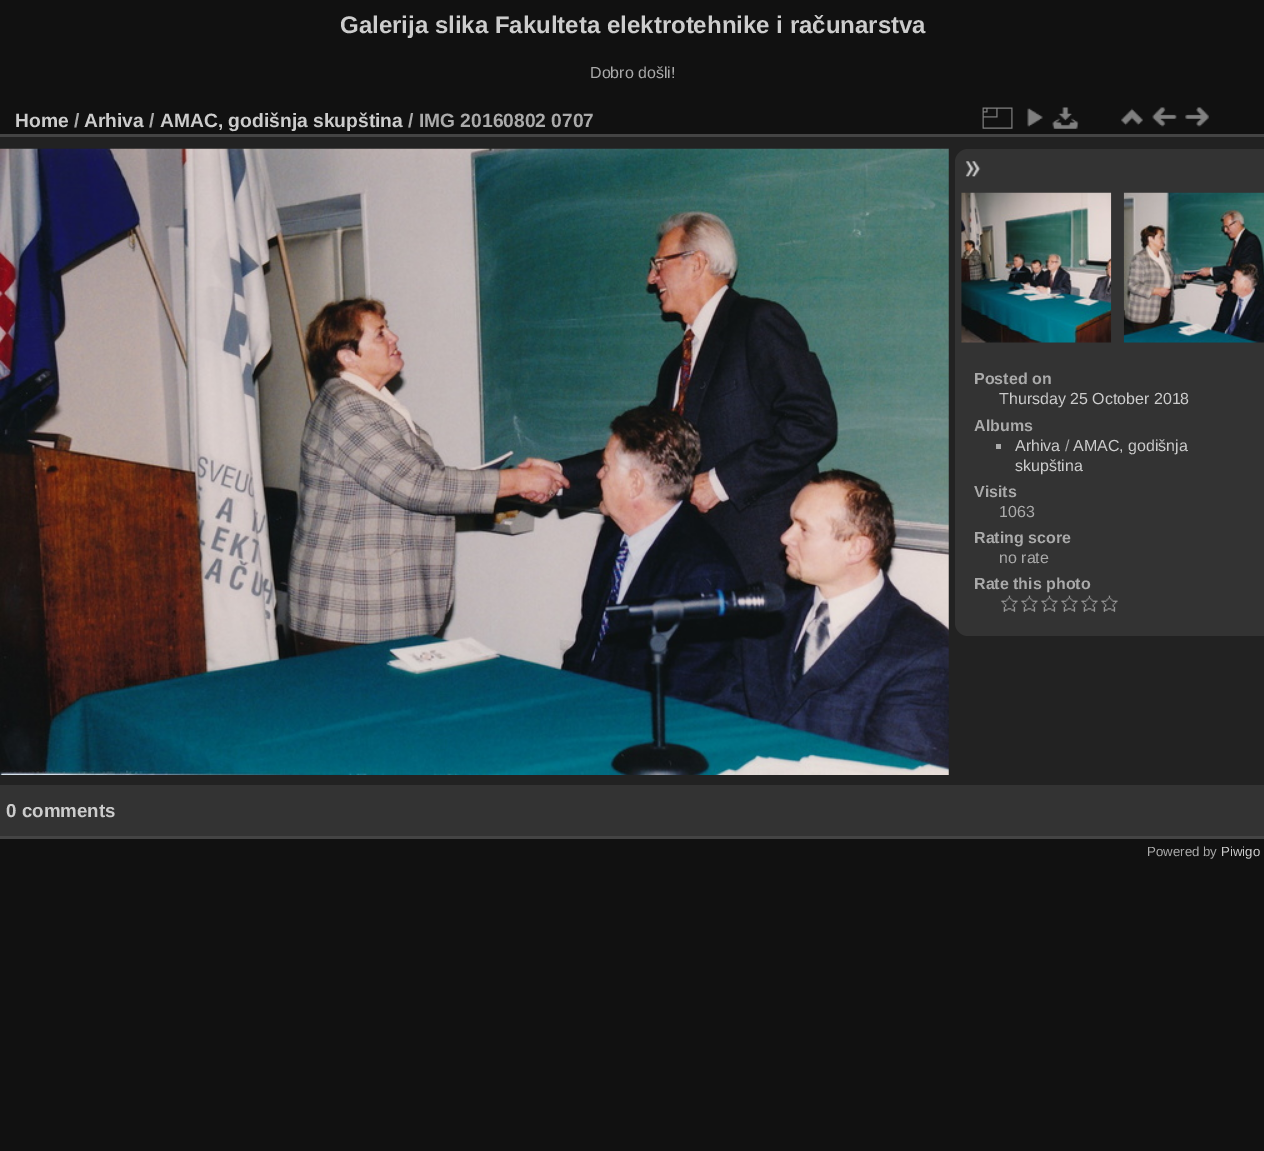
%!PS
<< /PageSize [1264 1151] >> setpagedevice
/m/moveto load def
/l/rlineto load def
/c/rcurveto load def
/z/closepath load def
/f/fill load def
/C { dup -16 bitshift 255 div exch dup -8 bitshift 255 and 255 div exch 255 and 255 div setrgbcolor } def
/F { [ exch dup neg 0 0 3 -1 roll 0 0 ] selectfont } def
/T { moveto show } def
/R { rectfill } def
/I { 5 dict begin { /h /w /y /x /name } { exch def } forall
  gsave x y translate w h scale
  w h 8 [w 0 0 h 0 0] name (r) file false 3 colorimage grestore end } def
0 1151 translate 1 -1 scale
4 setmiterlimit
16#111111 C
0 0 1264 1151 R
/LiberationSans-Bold 24 F
16#CCCCCC C
(Galerija slika Fakulteta elektrotehnike i računarstva) 340 33 T
/LiberationSans-Regular 16 F
16#AAAAAA C
(Dobro došli!) 590 78 T
16#222222 C
0 137 1264 648 R
16#444444 C
0 836 1264 3 R
0 134 1264 3 R
/LiberationSans-Bold 19.25 F
16#CCCCCC C
(Home) 15 127 T
16#AAAAAA C
(/) 74 127 T
16#CCCCCC C
(Arhiva) 84 127 T
16#AAAAAA C
(/) 149 127 T
16#CCCCCC C
(AMAC, godišnja skupština) 160 127 T
16#AAAAAA C
(/ IMG 20160802 0707) 408 127 T
(1.rgb) 982 107 31 22 I
(2.rgb) 1027 108 16 19 I
(3.rgb) 1052 107 27 22 I
(4.rgb) 1121 108 22 18 I
(5.rgb) 1152 107 25 20 I
(6.rgb) 1185 107 24 20 I
(7.rgb) 0 148 949 627 I
16#333333 C
968 149 m 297 0 l 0 487 l -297 0 l -7 0 -13 -6 -13 -13 c 0 -461 l 0 -7 6 -13 13 -13 c z f
(8.rgb) 965 161 16 16 I
(9.rgb) 961 192 151 151 I
(10.rgb) 1123 192 141 151 I
/LiberationSans-Bold 16 F
16#AAAAAA C
(Posted on) 974 384 T
/LiberationSans-Regular 16 F
16#CCCCCC C
(Thursday 25 October 2018) 999 404 T
/LiberationSans-Bold 16 F
16#AAAAAA C
(Albums) 974 431 T
996 444 5 5 R
/LiberationSans-Regular 16 F
16#CCCCCC C
(Arhiva) 1015 451 T
16#AAAAAA C
(/) 1065 451 T
16#CCCCCC C
(AMAC, godišnja) 1073 451 T
(skupština) 1015 471 T
/LiberationSans-Bold 16 F
16#AAAAAA C
(Visits) 974 497 T
/LiberationSans-Regular 16 F
(1063) 999 517 T
/LiberationSans-Bold 16 F
(Rating score) 974 543 T
/LiberationSans-Regular 16 F
(no rate) 999 563 T
/LiberationSans-Bold 16 F
(Rate this photo) 974 589 T
(11.rgb) 1001 595 17 17 I
(12.rgb) 1021 595 17 17 I
(13.rgb) 1041 595 17 17 I
(11.rgb) 1061 595 17 17 I
(11.rgb) 1081 595 17 17 I
(11.rgb) 1101 595 17 17 I
16#333333 C
0 785 1264 51 R
/LiberationSans-Bold 18.75 F
16#CCCCCC C
(0 comments) 6 817 T
/LiberationSans-Regular 13.25 F
16#AAAAAA C
(Powered by) 1147 856 T
16#CCCCCC C
(Piwigo) 1221 856 T
showpage
